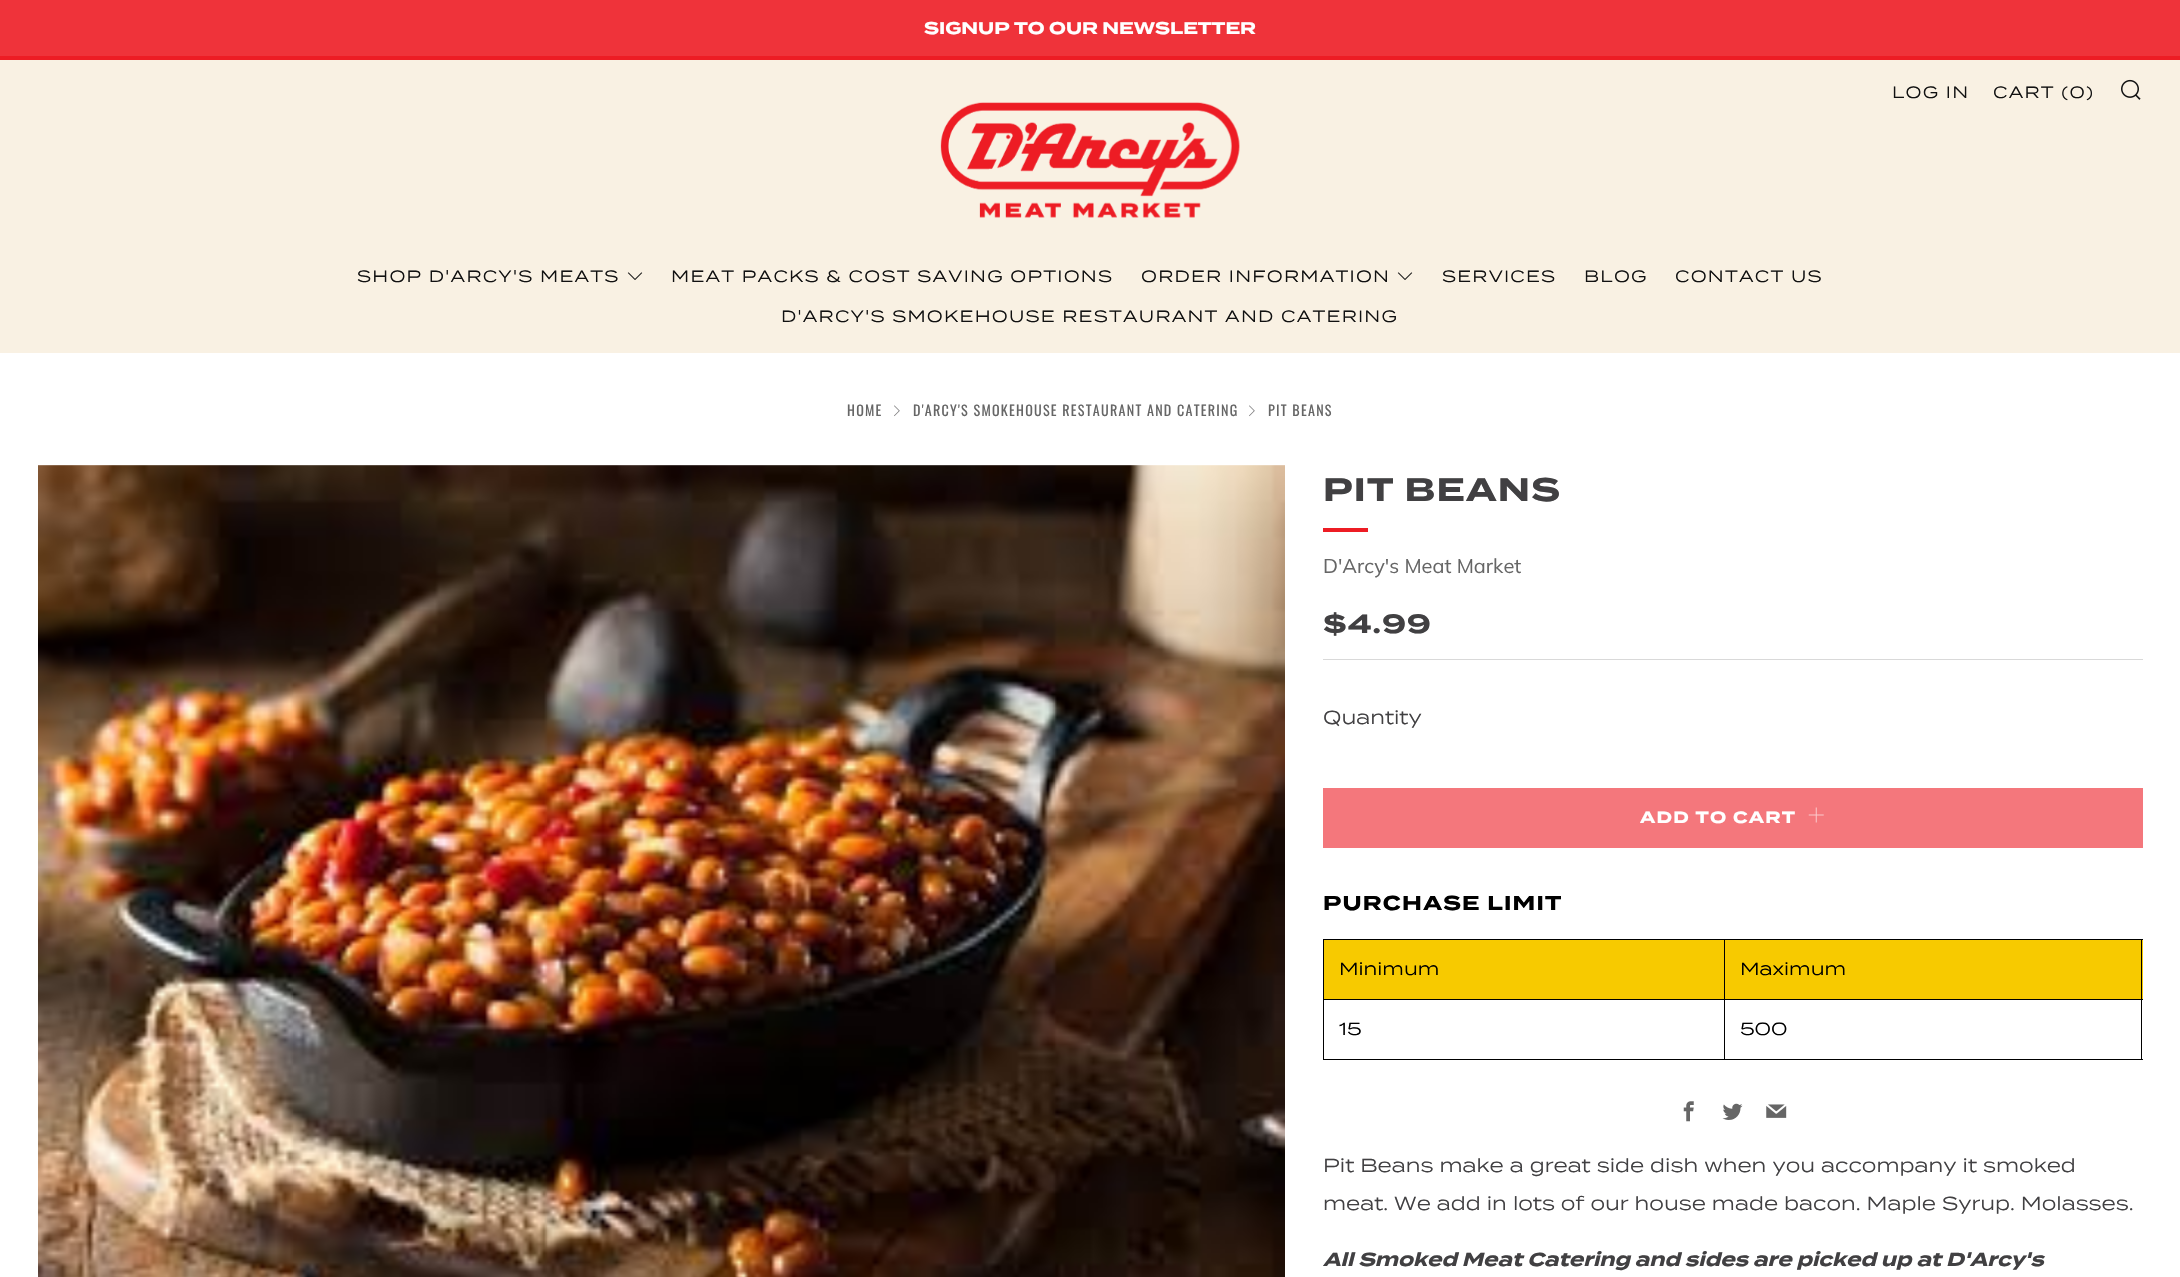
void draw(SkCanvas* canvas) {
	SkPaint fill;
	fill.setAntiAlias(true);
	auto makeFont = [&](const char* family, int weight, float size, bool italic = false) {
		SkFontStyle style(weight, SkFontStyle::kNormal_Width,
			italic ? SkFontStyle::kItalic_Slant : SkFontStyle::kUpright_Slant);
		SkFont result(fontMgr->matchFamilyStyle(family, style), size);
		result.setSubpixel(true);
		return result;
	};
	auto text = [&](const char* s, float x, float y, const SkFont& font) {
		canvas->drawString(s, x, y, font, fill);
	};
	auto spacedText = [&](const char* s, float x, float y, const SkFont& font, const SkPaint& ink, float letter, float word) {
		std::vector<SkGlyphID> glyphs(font.countText(s, strlen(s), SkTextEncoding::kUTF8));
		std::vector<float> xs(glyphs.size());
		font.textToGlyphs(s, strlen(s), SkTextEncoding::kUTF8, glyphs);
		font.getXPos(glyphs, xs, x);
		float extra = 0;
		for (size_t i = 0; i < glyphs.size(); i++) {
			xs[i] += extra;
			extra += letter + word * (glyphs[i] == font.unicharToGlyph(' '));
		}
		canvas->drawTextBlob(SkTextBlob::MakeFromPosHGlyphs(glyphs, xs, y, font), 0, 0, ink);
	};
	auto box = [&](float l, float t, float r, float b) {
		canvas->drawRect(SkRect::MakeLTRB(l, t, r, b), fill);
	};
	auto picture = [&](const char* path, float l, float t, float r, float b) {
		auto image = SkImages::DeferredFromEncodedData(SkData::MakeFromFileName(path));
		canvas->drawImageRect(image, SkRect::MakeLTRB(l, t, r, b), SkSamplingOptions());
	};
	canvas->clear(0xFFFFFFFF);
	fill.setColor(0xFFEF333A);
	box(0, 0, 2180, 56);
	fill.setColor(0xFFF9F1E3);
	box(0, 60, 2180, 353);
	fill.setColor(0xFFED1C24);
	box(0, 56, 2180, 60);
	picture("image0.png", 2121, 79, 2141, 100);
	picture("image1.png", 627, 272, 643, 280);
	picture("image1.png", 1397, 272, 1413, 280);
	picture("image2.png", 940, 102, 1240, 218);
	picture("image3.png", 894, 405, 900, 417);
	picture("image3.png", 1249, 405, 1255, 417);
	picture("image4.png", 38, 465, 1285, 1277);
	box(1323, 528, 1368, 532);
	fill.setColor(0xFFD9D9D9);
	box(1323, 659, 2143, 660);
	fill.setColor(0xFFF4777C);
	box(1323, 788, 2143, 848);
	picture("image5.png", 1808, 807, 1824, 823);
	fill.setColor(0xFFF7CA00);
	box(1324, 940, 1724, 999);
	fill.setColor(0xFF000000);
	box(1724, 939, 2143, 940);
	box(1724, 999, 2143, 1000);
	box(2141, 999, 2142, 1060);
	box(1724, 1059, 2143, 1060);
	box(1724, 999, 1725, 1060);
	box(1323, 999, 1725, 1000);
	box(1724, 939, 1725, 1000);
	box(1323, 939, 1725, 940);
	box(1323, 1059, 1725, 1060);
	box(1323, 999, 1324, 1060);
	box(1323, 939, 1324, 1000);
	fill.setColor(0xFFF7CA00);
	box(1725, 940, 2143, 999);
	fill.setColor(0xFF000000);
	box(2141, 939, 2142, 1000);
	picture("image6.png", 1683, 1101, 1694, 1122);
	picture("image7.png", 1722, 1103, 1743, 1120);
	picture("image8.png", 1766, 1104, 1787, 1118);
	auto font1 = makeFont("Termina", 700, 16.9f);
	fill.setColor(0xFFFFFFFF);
	text("SIGNUP TO OUR NEWSLETTER", 924, 34, font1);
	auto font2 = makeFont("Termina", 400, 16.25f);
	fill.setColor(0xFF111111);
	spacedText("LOG IN", 1892, 98, font2, fill, 1.25f, 0);
	spacedText("CART (0)", 1993, 98, font2, fill, 1.25f, 0);
	spacedText("SHOP D'ARCY'S MEATS", 357, 282, font2, fill, 1.25f, 0);
	spacedText("MEAT PACKS & COST SAVING OPTIONS", 671, 282, font2, fill, 1.25f, 0);
	spacedText("ORDER INFORMATION", 1141, 282, font2, fill, 1.25f, 0);
	spacedText("SERVICES", 1442, 282, font2, fill, 1.25f, 0);
	spacedText("BLOG", 1584, 282, font2, fill, 1.25f, 0);
	spacedText("CONTACT US", 1675, 282, font2, fill, 1.25f, 0);
	spacedText("D'ARCY'S SMOKEHOUSE RESTAURANT AND CATERING", 781, 322, font2, fill, 1.25f, 0);
	auto font3 = makeFont("Oswald", 400, 14.1f);
	fill.setColor(0xFF666666);
	spacedText("HOME", 847, 416, font3, fill, 1.25f, 0);
	spacedText("D'ARCY'S SMOKEHOUSE RESTAURANT AND CATERING", 913, 416, font3, fill, 1.25f, 0);
	spacedText("PIT BEANS", 1268, 416, font3, fill, 1.25f, 0);
	auto font4 = makeFont("Termina", 700, 32.5f);
	fill.setColor(0xFF414042);
	spacedText("PIT BEANS", 1323, 501, font4, fill, 1.25f, 0);
	auto font5 = makeFont("Muli", 400, 20);
	fill.setColor(0xFF666666);
	text("D'Arcy's Meat Market", 1323, 573, font5);
	auto font6 = makeFont("Termina", 700, 26.25f);
	fill.setColor(0xFF414042);
	spacedText("$4.99", 1323, 633, font6, fill, 1.25f, 0);
	auto font7 = makeFont("Termina", 400, 18.75f);
	text("Quantity", 1323, 724, font7);
	auto font8 = makeFont("Termina", 700, 16.25f);
	fill.setColor(0xFFFFFFFF);
	spacedText("ADD TO CART", 1640, 823, font8, fill, 1.25f, 0);
	auto font9 = makeFont("Termina", 700, 20);
	fill.setColor(0xFF000000);
	spacedText("PURCHASE LIMIT", 1323, 910, font9, fill, 1.25f, 0);
	auto font10 = makeFont("Termina", 400, 17.5f);
	text("Minimum", 1339, 975, font10);
	text("Maximum", 1740, 975, font10);
	text("15", 1339, 1035, font10);
	text("500", 1740, 1035, font10);
	fill.setColor(0xFF414042);
	text("Pit Beans make a great side dish when you accompany it smoked", 1323, 1172, font7);
	text("meat. We add in lots of our house made bacon. Maple Syrup. Molasses.", 1323, 1210, font7);
	auto font11 = makeFont("Termina", 700, 18.75f, true);
	text("All Smoked Meat Catering and sides are picked up at D'Arcy's", 1323, 1266, font11);
}
